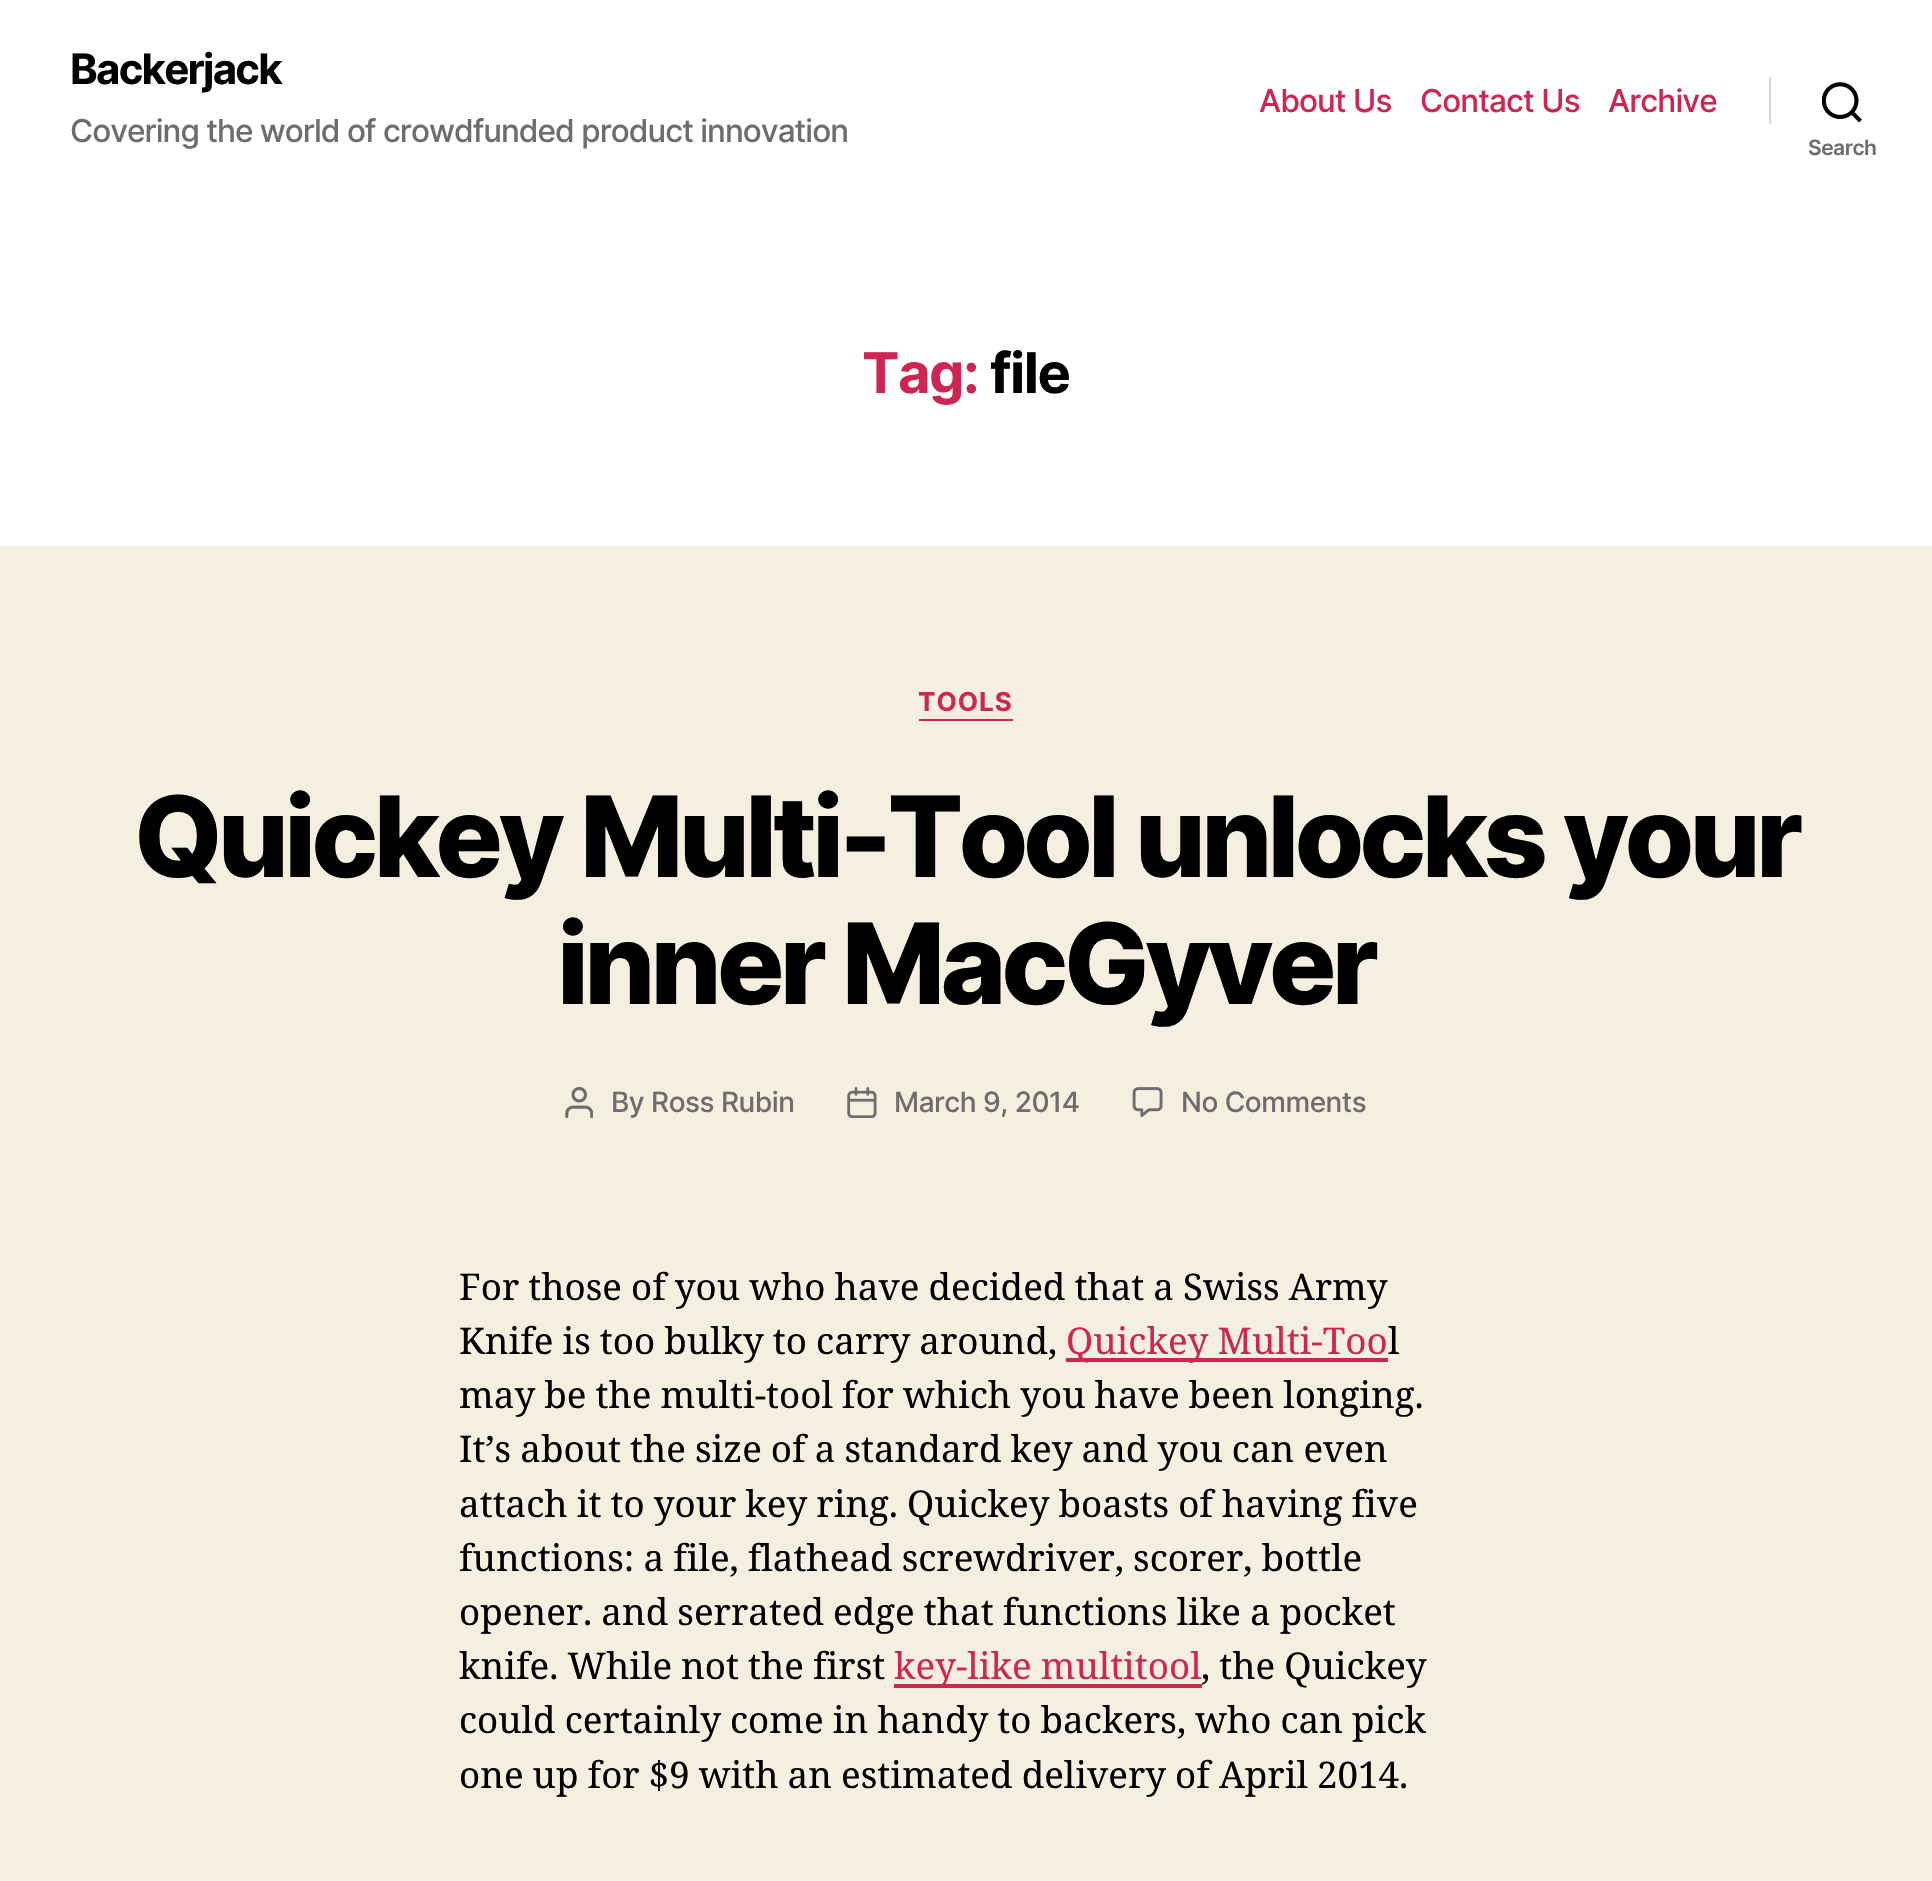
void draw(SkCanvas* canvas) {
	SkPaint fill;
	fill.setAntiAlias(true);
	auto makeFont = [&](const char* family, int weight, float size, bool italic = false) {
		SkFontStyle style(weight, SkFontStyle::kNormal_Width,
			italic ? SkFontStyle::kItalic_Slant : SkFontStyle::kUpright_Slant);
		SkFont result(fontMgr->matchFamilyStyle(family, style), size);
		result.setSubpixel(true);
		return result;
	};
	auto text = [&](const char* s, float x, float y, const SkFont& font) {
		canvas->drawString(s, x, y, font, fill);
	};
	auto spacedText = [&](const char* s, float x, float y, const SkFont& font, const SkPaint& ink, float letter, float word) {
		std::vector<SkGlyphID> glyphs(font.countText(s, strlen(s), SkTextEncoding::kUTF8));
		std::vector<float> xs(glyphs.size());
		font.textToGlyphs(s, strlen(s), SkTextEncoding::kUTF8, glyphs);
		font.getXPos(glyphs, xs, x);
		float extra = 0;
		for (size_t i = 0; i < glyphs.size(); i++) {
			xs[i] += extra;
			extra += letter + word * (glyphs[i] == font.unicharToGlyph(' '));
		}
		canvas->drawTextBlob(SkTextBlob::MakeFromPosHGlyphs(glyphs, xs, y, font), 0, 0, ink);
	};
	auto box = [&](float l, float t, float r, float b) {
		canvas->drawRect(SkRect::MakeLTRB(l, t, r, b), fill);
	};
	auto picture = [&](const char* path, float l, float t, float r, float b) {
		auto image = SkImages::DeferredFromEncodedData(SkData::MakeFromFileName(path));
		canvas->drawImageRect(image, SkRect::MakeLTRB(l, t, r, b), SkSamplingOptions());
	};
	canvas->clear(0xFFF5EFE0);
	fill.setColor(0xFFFFFFFF);
	box(0, 0, 1932, 546);
	fill.setColor(0xFFDCD7CA);
	box(1769, 77, 1771, 124);
	picture("image0.png", 1822, 82, 1862, 123);
	fill.setColor(0xFFCD2653);
	box(919, 719, 1013, 721);
	picture("image1.png", 565, 1087, 593, 1118);
	picture("image2.png", 847, 1087, 877, 1118);
	picture("image3.png", 1132, 1087, 1163, 1117);
	box(1066, 1358, 1388, 1362);
	box(894, 1684, 1202, 1688);
	auto font1 = makeFont("Inter", 700, 42);
	fill.setColor(0xFF000000);
	spacedText("Backerjack", 70, 84, font1, fill, -1.75f, 0);
	auto font2 = makeFont("Inter", 500, 31.5f);
	fill.setColor(0xFF6D6D6D);
	spacedText("Covering the world of crowdfunded product innovation", 70, 142, font2, fill, -0.98f, 0);
	fill.setColor(0xFFCD2653);
	spacedText("About Us", 1259, 112, font2, fill, -0.9f, 0);
	spacedText("Contact Us", 1420, 112, font2, fill, -0.9f, 0);
	spacedText("Archive", 1608, 112, font2, fill, -0.9f, 0);
	auto font3 = makeFont("Inter", 600, 21);
	fill.setColor(0xFF6D6D6D);
	spacedText("Search", 1808, 155, font3, fill, -0.5f, 0);
	auto font4 = makeFont("Inter", 700, 56);
	fill.setColor(0xFFCD2653);
	spacedText("Tag:", 862, 393, font4, fill, -1.5f, 0);
	fill.setColor(0xFF000000);
	spacedText("file", 990, 393, font4, fill, -1.5f, 0);
	auto font5 = makeFont("Inter", 700, 26);
	fill.setColor(0xFFCD2653);
	spacedText("TOOLS", 918, 711, font5, fill, 1, 0);
	auto font6 = makeFont("Inter", 800, 112);
	fill.setColor(0xFF000000);
	spacedText("Quickey Multi-Tool unlocks your", 134, 877, font6, fill, -4.65f, 0);
	spacedText("inner MacGyver", 557, 1004, font6, fill, -4.65f, 0);
	auto font7 = makeFont("Inter", 500, 28);
	fill.setColor(0xFF6D6D6D);
	spacedText("By Ross Rubin", 611, 1112, font7, fill, -0.5f, 0);
	spacedText("March 9, 2014", 894, 1112, font7, fill, -0.5f, 0);
	spacedText("No Comments", 1181, 1112, font7, fill, -0.5f, 0);
	auto font8 = makeFont("Noto Serif", 400, 36.75f);
	fill.setColor(0xFF000000);
	spacedText("For those of you who have decided that a Swiss Army", 459, 1300, font8, fill, 0, -0.5f);
	spacedText("Knife is too bulky to carry around,", 459, 1354, font8, fill, 0, -0.5f);
	fill.setColor(0xFFCD2653);
	spacedText("Quickey Multi-Too", 1066, 1354, font8, fill, 0, -0.5f);
	fill.setColor(0xFF000000);
	text("l", 1388, 1354, font8);
	spacedText("may be the multi-tool for which you have been longing.", 459, 1408, font8, fill, 0, -0.5f);
	spacedText("It’s about the size of a standard key and you can even", 459, 1462, font8, fill, 0, -0.5f);
	spacedText("attach it to your key ring. Quickey boasts of having five", 459, 1517, font8, fill, 0, -0.5f);
	spacedText("functions: a file, flathead screwdriver, scorer, bottle", 459, 1571, font8, fill, 0, -0.5f);
	spacedText("opener. and serrated edge that functions like a pocket", 459, 1625, font8, fill, 0, -0.5f);
	spacedText("knife. While not the first", 459, 1679, font8, fill, 0, -0.5f);
	fill.setColor(0xFFCD2653);
	spacedText("key-like multitool", 894, 1679, font8, fill, 0, -0.5f);
	fill.setColor(0xFF000000);
	spacedText(", the Quickey", 1201, 1679, font8, fill, 0, -0.5f);
	spacedText("could certainly come in handy to backers, who can pick", 459, 1733, font8, fill, 0, -0.5f);
	spacedText("one up for $9 with an estimated delivery of April 2014.", 459, 1788, font8, fill, 0, -0.5f);
}
